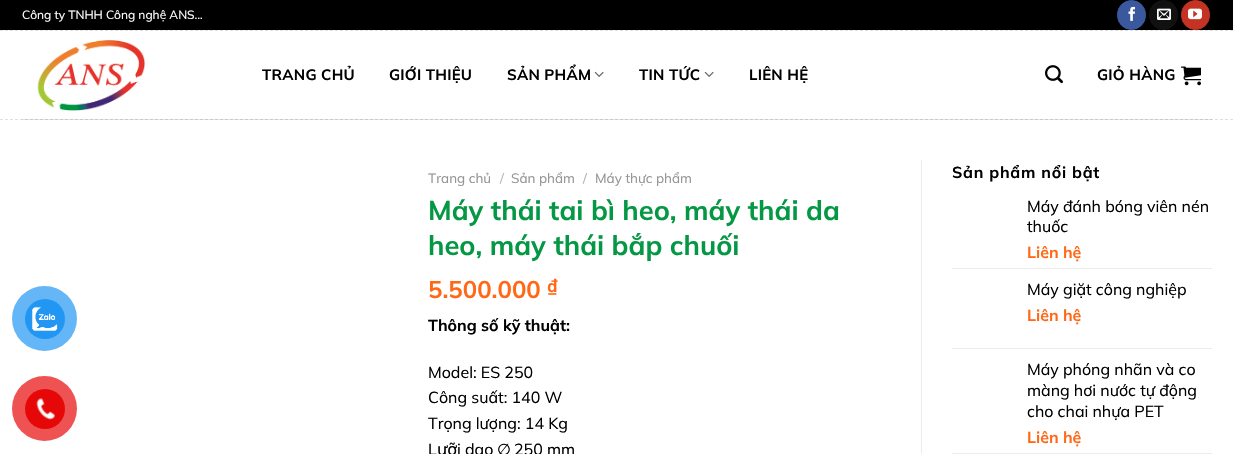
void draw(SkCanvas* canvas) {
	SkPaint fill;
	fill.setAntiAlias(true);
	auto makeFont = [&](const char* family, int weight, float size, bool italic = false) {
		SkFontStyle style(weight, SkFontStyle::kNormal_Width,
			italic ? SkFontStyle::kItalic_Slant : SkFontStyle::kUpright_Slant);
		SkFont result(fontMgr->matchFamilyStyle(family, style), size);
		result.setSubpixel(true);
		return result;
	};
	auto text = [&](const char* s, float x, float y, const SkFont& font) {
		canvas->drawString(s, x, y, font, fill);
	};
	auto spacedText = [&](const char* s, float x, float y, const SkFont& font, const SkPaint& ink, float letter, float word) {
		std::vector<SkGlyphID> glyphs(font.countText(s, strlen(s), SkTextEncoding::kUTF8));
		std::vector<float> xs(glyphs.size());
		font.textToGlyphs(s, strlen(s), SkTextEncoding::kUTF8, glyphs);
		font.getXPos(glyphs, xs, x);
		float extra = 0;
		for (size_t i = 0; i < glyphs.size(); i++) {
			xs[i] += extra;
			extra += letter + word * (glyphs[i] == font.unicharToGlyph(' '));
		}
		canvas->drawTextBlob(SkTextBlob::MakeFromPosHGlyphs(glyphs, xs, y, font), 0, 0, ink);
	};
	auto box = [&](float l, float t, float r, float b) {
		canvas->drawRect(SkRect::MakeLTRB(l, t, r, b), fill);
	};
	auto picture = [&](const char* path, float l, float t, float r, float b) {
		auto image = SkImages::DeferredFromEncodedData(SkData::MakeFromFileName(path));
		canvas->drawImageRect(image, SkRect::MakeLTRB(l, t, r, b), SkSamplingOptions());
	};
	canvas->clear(0xFFFFFFFF);
	fill.setColor(0xFF000000);
	box(0, 0, 1233, 30);
	fill.setColor(0xFF3A589D);
	canvas->drawRoundRect(SkRect::MakeLTRB(1117.5f, 0.5f, 1145.5f, 29.5f), 14, 14, fill);
	fill.setStyle(SkPaint::kStroke_Style);
	fill.setStrokeWidth(1);
	canvas->drawRoundRect(SkRect::MakeLTRB(1117.5f, 0.5f, 1145.5f, 29.5f), 14, 14, fill);
	picture("image0.png", 1128, 6, 1135, 21);
	fill.setStyle(SkPaint::kFill_Style);
	fill.setColor(0xFF111111);
	canvas->drawRoundRect(SkRect::MakeLTRB(1149.5f, 0.5f, 1177.5f, 29.5f), 14, 14, fill);
	fill.setStyle(SkPaint::kStroke_Style);
	canvas->drawRoundRect(SkRect::MakeLTRB(1149.5f, 0.5f, 1177.5f, 29.5f), 14, 14, fill);
	picture("image1.png", 1157, 8, 1171, 20);
	fill.setStyle(SkPaint::kFill_Style);
	fill.setColor(0xFFC33223);
	canvas->drawRoundRect(SkRect::MakeLTRB(1181.5f, 0.5f, 1209.5f, 29.5f), 14, 14, fill);
	fill.setStyle(SkPaint::kStroke_Style);
	canvas->drawRoundRect(SkRect::MakeLTRB(1181.5f, 0.5f, 1209.5f, 29.5f), 14, 14, fill);
	picture("image2.png", 1188, 8, 1202, 20);
	fill.setColor(0xFFE0E0E0);
	fill.setPathEffect(SkDashPathEffect::Make({{3, 2}}, 0));
	canvas->drawPath(SkPathBuilder().moveTo(0, 30.5f).lineTo(1233, 30.5f).detach(), fill);
	fill.setPathEffect(nullptr);
	fill.setPathEffect(SkDashPathEffect::Make({{3, 2}}, 0));
	canvas->drawPath(SkPathBuilder().moveTo(0, 119.5f).lineTo(1233, 119.5f).detach(), fill);
	fill.setPathEffect(nullptr);
	picture("image3.png", 37, 40, 146, 111);
	picture("image4.png", 594, 71, 604, 77);
	picture("image4.png", 704, 71, 714, 77);
	picture("image5.png", 1045, 65, 1063, 84);
	picture("image6.png", 1181, 66, 1201, 86);
	fill.setStyle(SkPaint::kFill_Style);
	fill.setColor(0x1A000000);
	box(22, 119, 1212, 120);
	fill.setColor(0xFFECECEC);
	box(921, 160, 922, 454);
	box(952, 268, 1212, 269);
	box(952, 348, 1212, 349);
	box(952, 453, 1212, 454);
	fill.setColor(0xFF64B6F7);
	canvas->drawCircle(44.5f, 318.5f, 32.5f, fill);
	fill.setColor(0xFF2196F3);
	canvas->drawCircle(45, 319, 20, fill);
	picture("image7.png", 32, 307, 58, 331);
	fill.setColor(0xFFEE5252);
	canvas->drawCircle(44.5f, 408.5f, 32.5f, fill);
	fill.setColor(0xFFE60808);
	canvas->drawCircle(45, 409, 20, fill);
	picture("image8.png", 36, 398, 55, 420);
	auto font1 = makeFont("Mulish", 400, 12);
	fill.setColor(0xFFFFFFFF);
	text("Công ty TNHH Công nghệ ANS...", 22, 19, font1);
	auto font2 = makeFont("Mulish", 700, 15);
	fill.setColor(0xFF000000);
	spacedText("TRANG CHỦ", 262, 80, font2, fill, 0.25f, 0);
	spacedText("GIỚI THIỆU", 389, 80, font2, fill, 0.25f, 0);
	spacedText("SẢN PHẨM", 507, 80, font2, fill, 0.25f, 0);
	spacedText("TIN TỨC", 639, 80, font2, fill, 0.25f, 0);
	spacedText("LIÊN HỆ", 749, 80, font2, fill, 0.25f, 0);
	spacedText("GIỎ HÀNG", 1097, 80, font2, fill, 0.25f, 0);
	auto font3 = makeFont("Mulish", 400, 13.5f);
	fill.setColor(0xFF949494);
	text("Trang chủ", 428, 183, font3);
	fill.setColor(0xFFB2B2B2);
	text("/", 500, 183, font3);
	fill.setColor(0xFF949494);
	text("Sản phẩm", 511, 183, font3);
	fill.setColor(0xFFB2B2B2);
	text("/", 583, 183, font3);
	fill.setColor(0xFF949494);
	text("Máy thực phẩm", 595, 183, font3);
	auto font4 = makeFont("Mulish", 700, 27.25f);
	fill.setColor(0xFF049744);
	text("Máy thái tai bì heo, máy thái da", 428, 220, font4);
	text("heo, máy thái bắp chuối", 428, 255, font4);
	auto font5 = makeFont("Mulish", 700, 24);
	fill.setColor(0xFFFF6816);
	text("5.500.000", 428, 298, font5);
	auto font6 = makeFont("Mulish", 700, 18);
	text("₫", 547, 292, font6);
	auto font7 = makeFont("Mulish", 700, 16);
	fill.setColor(0xFF000000);
	text("Thông số kỹ thuật:", 428, 331, font7);
	auto font8 = makeFont("Mulish", 400, 16);
	text("Model: ES 250", 428, 378, font8);
	text("Công suất: 140 W", 428, 403, font8);
	text("Trọng lượng: 14 Kg", 428, 429, font8);
	text("L", 428, 455, font8);
	auto font9 = makeFont("DejaVu Sans", 400, 16);
	text("ưỡ", 437, 455, font9);
	text("i dao", 457, 455, font8);
	text("∅", 497, 455, font9);
	text("250 mm", 514, 455, font8);
	spacedText("Sản phẩm nổi bật", 952, 178, font7, fill, 0.75f, 0);
	text("Máy đánh bóng viên nén", 1027, 212, font8);
	text("thuốc", 1027, 232, font8);
	fill.setColor(0xFFFF6816);
	text("Liên hệ", 1027, 258, font7);
	fill.setColor(0xFF000000);
	text("Máy giặt công nghiệp", 1027, 295, font8);
	fill.setColor(0xFFFF6816);
	text("Liên hệ", 1027, 321, font7);
	fill.setColor(0xFF000000);
	text("Máy phóng nhãn và co", 1027, 375, font8);
	text("màng hơi nước tự động", 1027, 396, font8);
	text("cho chai nhựa PET", 1027, 417, font8);
	fill.setColor(0xFFFF6816);
	text("Liên hệ", 1027, 443, font7);
}
